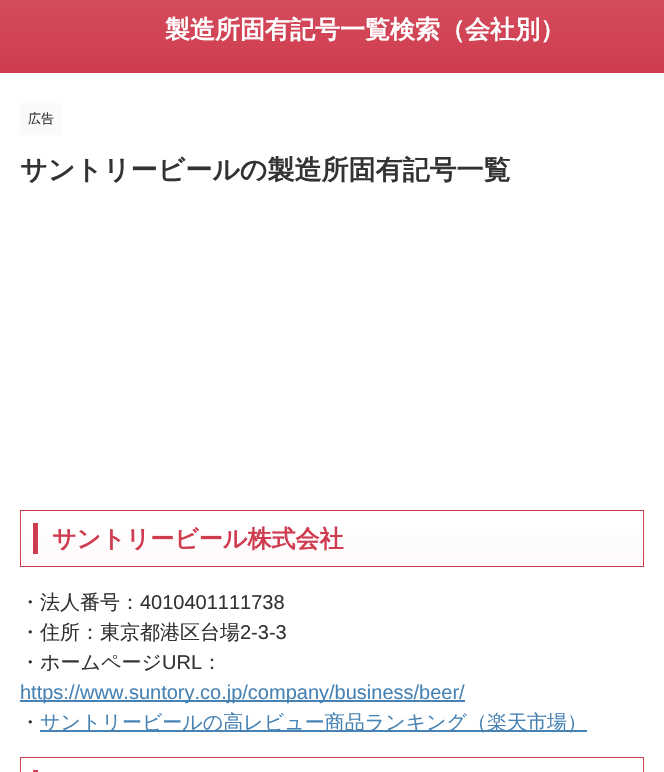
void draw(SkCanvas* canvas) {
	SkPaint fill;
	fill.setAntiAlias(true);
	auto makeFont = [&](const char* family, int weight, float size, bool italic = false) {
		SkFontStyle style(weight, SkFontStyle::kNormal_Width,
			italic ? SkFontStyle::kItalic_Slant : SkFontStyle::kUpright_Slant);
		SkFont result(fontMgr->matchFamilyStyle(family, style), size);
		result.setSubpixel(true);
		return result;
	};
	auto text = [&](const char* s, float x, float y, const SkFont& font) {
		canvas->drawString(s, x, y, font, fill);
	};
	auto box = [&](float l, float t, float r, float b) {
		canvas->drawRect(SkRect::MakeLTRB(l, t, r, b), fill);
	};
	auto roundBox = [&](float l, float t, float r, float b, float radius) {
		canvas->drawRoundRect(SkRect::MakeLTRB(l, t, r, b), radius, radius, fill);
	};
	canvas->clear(0xFFFFFFFF);
	{
		const SkColor colors[] = {0xFFD34C5D, 0xFFCF3C4F};
		const float stops[] = {0, 1};
		const SkPoint ends[] = {{332, 0}, {332, 73}};
		fill.setShader(SkGradientShader::MakeLinear(ends, colors, stops, 2, SkTileMode::kClamp));
		fill.setAlpha(255);
	}
	box(0, 0, 664, 73);
	fill.setShader(nullptr);
	fill.setColor(0xFFFAFAFA);
	roundBox(20, 103, 62, 135, 2);
	{
		const SkColor colors[] = {0xFFFFFFFF, 0xFFFEF9FA};
		const float stops[] = {0, 1};
		const SkPoint ends[] = {{332, 511}, {332, 566}};
		fill.setShader(SkGradientShader::MakeLinear(ends, colors, stops, 2, SkTileMode::kClamp));
		fill.setAlpha(255);
	}
	box(21, 534, 643, 566);
	fill.setStyle(SkPaint::kStroke_Style);
	fill.setStrokeWidth(1);
	fill.setShader(nullptr);
	fill.setColor(0xFFCF3C4F);
	canvas->drawRect(SkRect::MakeLTRB(20.5f, 510.5f, 643.5f, 566.5f), fill);
	fill.setStyle(SkPaint::kFill_Style);
	box(33, 523, 38, 554);
	fill.setColor(0xFF4682B4);
	box(20, 700, 465, 702);
	box(40, 730, 587, 732);
	fill.setStyle(SkPaint::kStroke_Style);
	fill.setColor(0xFFCF3C4F);
	canvas->drawRect(SkRect::MakeLTRB(20.5f, 757.5f, 643.5f, 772.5f), fill);
	fill.setStyle(SkPaint::kFill_Style);
	box(33, 770, 38, 772);
	auto font1 = makeFont("WenQuanYi Zen Hei", 700, 25);
	fill.setColor(0xFFFFFFFF);
	text("製造所固有記号一覧検索（会社別）", 165, 38, font1);
	auto font2 = makeFont("WenQuanYi Zen Hei", 500, 13);
	fill.setColor(0xFF333333);
	text("広告", 28, 123, font2);
	auto font3 = makeFont("WenQuanYi Zen Hei", 700, 27);
	text("サントリービールの製造所固有記号一覧", 20, 179, font3);
	auto font4 = makeFont("WenQuanYi Zen Hei", 700, 24);
	fill.setColor(0xFFCF3C4F);
	text("サントリービール株式会社", 52, 547, font4);
	auto font5 = makeFont("WenQuanYi Zen Hei", 500, 20);
	fill.setColor(0xFF333333);
	text("・法人番号：", 20, 609, font5);
	auto font6 = makeFont("Liberation Sans", 400, 20);
	text("4010401111738", 140, 609, font6);
	text("・住所：東京都港区台場", 20, 639, font5);
	text("2-3-3", 240, 639, font6);
	text("・ホームページ", 20, 669, font5);
	text("URL", 162, 669, font6);
	text("：", 202, 669, font5);
	fill.setColor(0xFF4682B4);
	text("https://www.suntory.co.jp/company/business/beer/", 20, 699, font6);
	fill.setColor(0xFF333333);
	text("・", 20, 729, font5);
	fill.setColor(0xFF4682B4);
	text("サントリービールの高レビュー商品ランキング（楽天市場）", 40, 729, font5);
}
